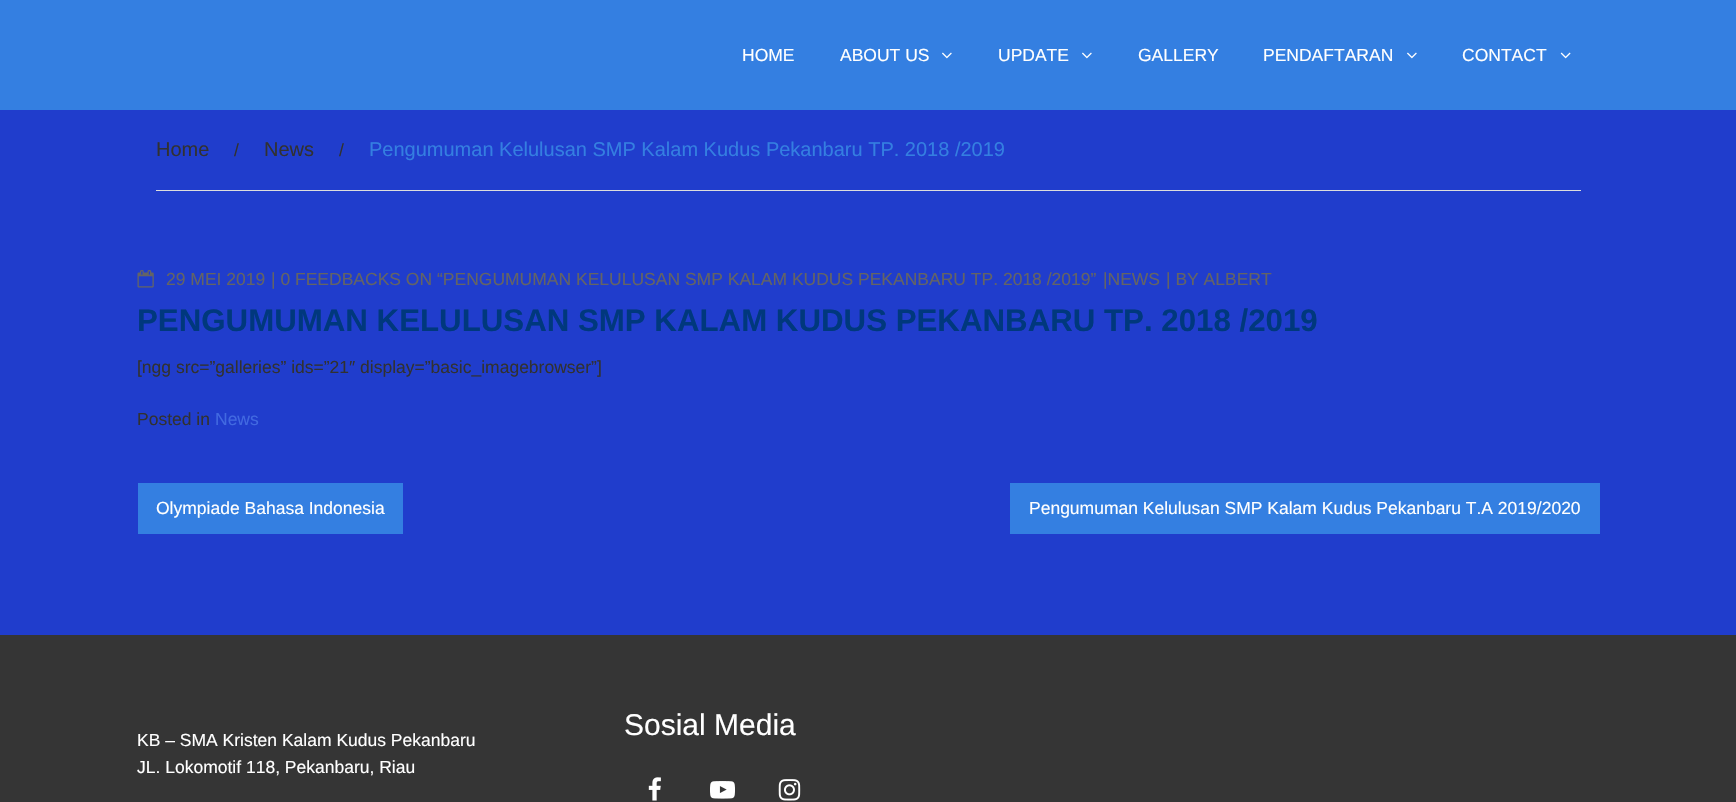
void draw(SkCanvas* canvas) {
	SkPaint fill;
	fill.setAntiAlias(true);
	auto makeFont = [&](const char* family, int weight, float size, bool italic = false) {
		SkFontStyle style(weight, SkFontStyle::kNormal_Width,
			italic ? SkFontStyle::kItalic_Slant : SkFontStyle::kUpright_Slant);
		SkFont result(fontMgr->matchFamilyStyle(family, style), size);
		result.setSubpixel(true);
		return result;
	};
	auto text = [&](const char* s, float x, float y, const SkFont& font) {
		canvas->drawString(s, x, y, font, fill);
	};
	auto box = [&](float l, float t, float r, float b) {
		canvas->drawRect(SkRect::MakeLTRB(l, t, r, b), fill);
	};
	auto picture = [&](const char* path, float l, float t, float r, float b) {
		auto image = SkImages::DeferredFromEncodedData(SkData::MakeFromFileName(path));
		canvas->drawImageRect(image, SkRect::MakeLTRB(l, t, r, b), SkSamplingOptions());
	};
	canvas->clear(0xFF203DCC);
	fill.setColor(0xFF347FE1);
	box(0, 0, 1736, 110);
	picture("image0.png", 942, 52, 952, 59);
	picture("image0.png", 1082, 52, 1092, 59);
	picture("image0.png", 1407, 52, 1417, 59);
	picture("image1.png", 1560, 52, 1571, 59);
	fill.setColor(0xFFDDDDDD);
	box(156, 190, 1581, 191);
	picture("image2.png", 137, 270, 154, 288);
	fill.setColor(0xFF347FE1);
	box(138, 483, 403, 534);
	box(1010, 483, 1600, 534);
	fill.setColor(0xFF353535);
	box(0, 635, 1736, 802);
	picture("image3.png", 648, 777, 661, 801);
	picture("image4.png", 710, 781, 735, 799);
	picture("image5.png", 778, 779, 801, 801);
	auto font1 = makeFont("Liberation Sans", 400, 17.5f);
	fill.setColor(0xFFFFFFFF);
	text("HOME", 742, 61, font1);
	text("ABOUT US", 840, 61, font1);
	text("UPDATE", 998, 61, font1);
	text("GALLERY", 1138, 61, font1);
	text("PENDAFTARAN", 1263, 61, font1);
	text("CONTACT", 1462, 61, font1);
	auto font2 = makeFont("Liberation Sans", 400, 20);
	fill.setColor(0xFF313131);
	text("Home", 156, 156, font2);
	text("/", 234, 156, font1);
	text("News", 264, 156, font2);
	text("/", 339, 156, font1);
	fill.setColor(0xFF347FE1);
	text("Pengumuman Kelulusan SMP Kalam Kudus Pekanbaru TP. 2018 /2019", 369, 156, font2);
	fill.setColor(0xFF646464);
	text("29 MEI 2019", 166, 285, font1);
	text("| 0 FEEDBACKS ON “PENGUMUMAN KELULUSAN SMP KALAM KUDUS PEKANBARU TP. 2018 /2019”", 271, 285, font1);
	text("|NEWS", 1103, 285, font1);
	text("| BY ALBERT", 1166, 285, font1);
	auto font3 = makeFont("Liberation Sans", 700, 31.25f);
	fill.setColor(0xFF00387D);
	text("PENGUMUMAN KELULUSAN SMP KALAM KUDUS PEKANBARU TP. 2018 /2019", 137, 331, font3);
	fill.setColor(0xFF313131);
	text("[ngg src=”galleries” ids=”21″ display=”basic_imagebrowser”]", 137, 373, font1);
	text("Posted in", 137, 425, font1);
	fill.setColor(0xFF4169E1);
	text("News", 215, 425, font1);
	fill.setColor(0xFFFFFFFF);
	text("Olympiade Bahasa Indonesia", 156, 514, font1);
	text("Pengumuman Kelulusan SMP Kalam Kudus Pekanbaru T.A 2019/2020", 1029, 514, font1);
	auto font4 = makeFont("Liberation Sans", 400, 30);
	text("Sosial Media", 624, 735, font4);
	text("KB – SMA Kristen Kalam Kudus Pekanbaru", 137, 746, font1);
	text("JL. Lokomotif 118, Pekanbaru, Riau", 137, 773, font1);
}
